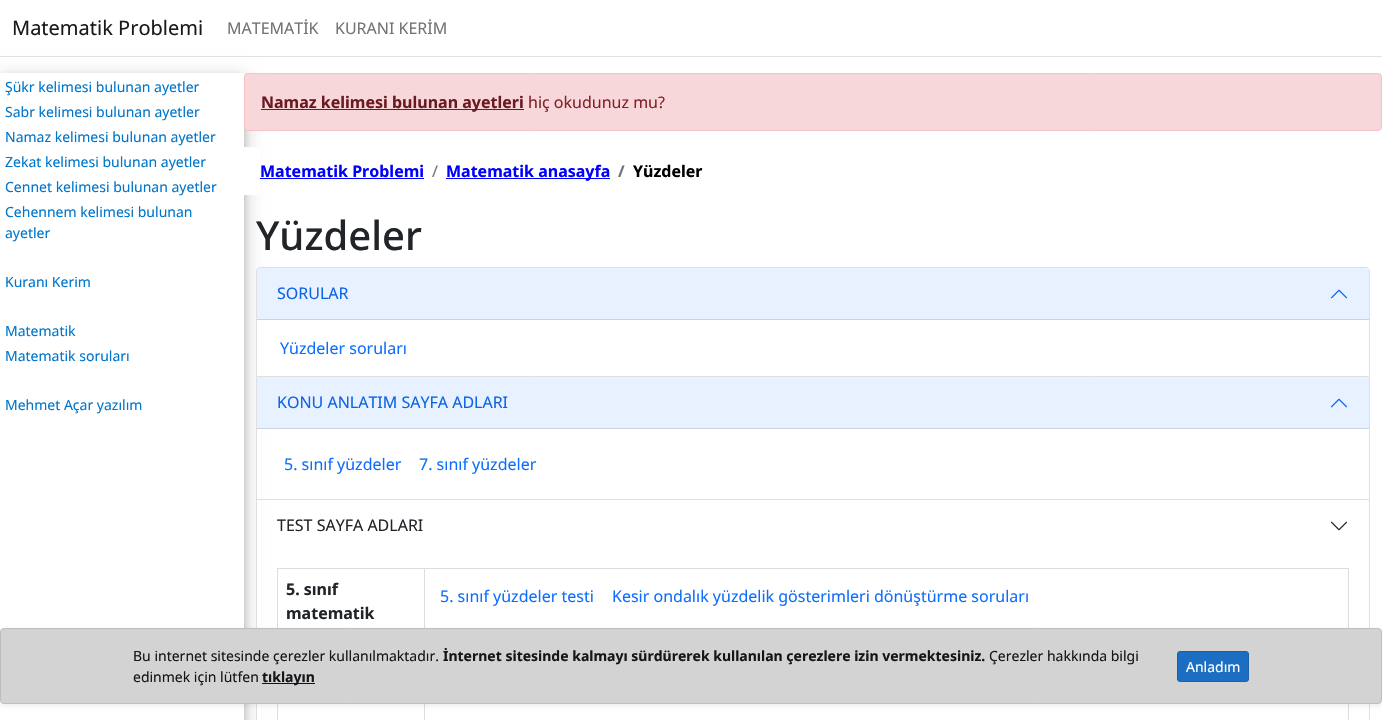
void draw(SkCanvas* canvas) {
	SkPaint fill;
	fill.setAntiAlias(true);
	auto makeFont = [&](const char* family, int weight, float size, bool italic = false) {
		SkFontStyle style(weight, SkFontStyle::kNormal_Width,
			italic ? SkFontStyle::kItalic_Slant : SkFontStyle::kUpright_Slant);
		SkFont result(fontMgr->matchFamilyStyle(family, style), size);
		result.setSubpixel(true);
		return result;
	};
	auto text = [&](const char* s, float x, float y, const SkFont& font) {
		canvas->drawString(s, x, y, font, fill);
	};
	auto box = [&](float l, float t, float r, float b) {
		canvas->drawRect(SkRect::MakeLTRB(l, t, r, b), fill);
	};
	auto picture = [&](const char* path, float l, float t, float r, float b) {
		auto image = SkImages::DeferredFromEncodedData(SkData::MakeFromFileName(path));
		canvas->drawImageRect(image, SkRect::MakeLTRB(l, t, r, b), SkSamplingOptions());
	};
	canvas->clear(0xFFFFFFFF);
	canvas->save();
	canvas->clipPath(SkPathBuilder(SkPathFillType::kEvenOdd).moveTo(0, 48).lineTo(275, 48).lineTo(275, 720).lineTo(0, 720).close().moveTo(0, 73).lineTo(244, 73).lineTo(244, 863).lineTo(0, 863).close().detach(), true);
	fill.setColor(0x30000000);
	fill.setMaskFilter(SkMaskFilter::MakeBlur(kNormal_SkBlurStyle, 10));
	canvas->drawRect(SkRect::MakeLTRB(0, 79, 244, 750), fill);
	fill.setMaskFilter(nullptr);
	canvas->restore();
	fill.setColor(0xFFDEE2E6);
	box(0, 56, 1382, 57);
	canvas->save();
	canvas->clipPath(SkPathBuilder(SkPathFillType::kEvenOdd).moveTo(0, 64).lineTo(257, 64).lineTo(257, 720).lineTo(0, 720).close().moveTo(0, 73).lineTo(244, 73).lineTo(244, 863).lineTo(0, 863).close().detach(), true);
	fill.setColor(0x33000000);
	fill.setMaskFilter(SkMaskFilter::MakeBlur(kNormal_SkBlurStyle, 4));
	canvas->drawRect(SkRect::MakeLTRB(0, 77, 244, 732), fill);
	fill.setMaskFilter(nullptr);
	canvas->restore();
	fill.setColor(0xFFF8D7DA);
	canvas->drawRoundRect(SkRect::MakeLTRB(244.5f, 73.5f, 1381.5f, 130.5f), 3.5f, 3.5f, fill);
	fill.setStyle(SkPaint::kStroke_Style);
	fill.setStrokeWidth(1);
	fill.setColor(0xFFF5C2C7);
	canvas->drawRoundRect(SkRect::MakeLTRB(244.5f, 73.5f, 1381.5f, 130.5f), 3.5f, 3.5f, fill);
	fill.setStyle(SkPaint::kFill_Style);
	fill.setColor(0xFF6A1A21);
	box(261, 109, 524, 110);
	fill.setColor(0xFFFFFFFF);
	box(244, 147, 260, 195);
	fill.setColor(0xFF0000FF);
	box(260, 178, 424, 179);
	box(446, 178, 610, 179);
	fill.setColor(0xFFFFFFFF);
	canvas->drawPath(SkPathBuilder().moveTo(260, 267.5f).lineTo(1366, 267.5f).cubicTo(1368, 267.5f, 1369.5f, 269, 1369.5f, 271).lineTo(1369.5f, 376.5f).lineTo(256.5f, 376.5f).lineTo(256.5f, 271).cubicTo(256.5f, 269, 258, 267.5f, 260, 267.5f).close().detach(), fill);
	fill.setStyle(SkPaint::kStroke_Style);
	fill.setColor(0xFFDFDFDF);
	canvas->drawPath(SkPathBuilder().moveTo(260, 267.5f).lineTo(1366, 267.5f).cubicTo(1368, 267.5f, 1369.5f, 269, 1369.5f, 271).lineTo(1369.5f, 376.5f).lineTo(256.5f, 376.5f).lineTo(256.5f, 271).cubicTo(256.5f, 269, 258, 267.5f, 260, 267.5f).close().detach(), fill);
	fill.setStyle(SkPaint::kFill_Style);
	fill.setColor(0xFFE7F1FF);
	canvas->drawPath(SkPathBuilder().moveTo(260, 268).lineTo(1366, 268).cubicTo(1367.5f, 268, 1369, 269.5f, 1369, 271).lineTo(1369, 320).lineTo(257, 320).lineTo(257, 271).cubicTo(257, 269.5f, 258.5f, 268, 260, 268).close().detach(), fill);
	fill.setColor(0xFFCAD3DF);
	box(257, 319, 1369, 320);
	picture("image0.png", 1330, 289, 1348, 299);
	fill.setColor(0xFFFFFFFF);
	box(256, 377, 260, 500);
	fill.setColor(0xFFDFDFDF);
	canvas->drawPath(SkPathBuilder().moveTo(1370, 377).lineTo(1370, 500).lineTo(1369, 499).lineTo(1369, 377).close().detach(), fill);
	fill.setColor(0x1F000000);
	canvas->drawPath(SkPathBuilder().moveTo(1370, 500).lineTo(256, 500).lineTo(257, 499).lineTo(1369, 499).close().detach(), fill);
	canvas->drawPath(SkPathBuilder().moveTo(256, 500).lineTo(256, 377).lineTo(257, 377).lineTo(257, 499).close().detach(), fill);
	fill.setColor(0xFFE7F1FF);
	box(257, 377, 1369, 428);
	fill.setColor(0xFFCAD3DF);
	box(257, 428, 1369, 429);
	picture("image0.png", 1330, 398, 1348, 408);
	fill.setColor(0xFFFFFFFF);
	box(257, 500, 260, 720);
	fill.setColor(0xFFDFDFDF);
	canvas->drawPath(SkPathBuilder(SkPathFillType::kEvenOdd).moveTo(256, 500).lineTo(1370, 500).lineTo(1370, 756).cubicTo(1370, 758, 1368, 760, 1366, 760).lineTo(260, 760).cubicTo(258, 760, 256, 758, 256, 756).close().moveTo(257, 500).lineTo(1369, 500).lineTo(1369, 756).cubicTo(1369, 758, 1368, 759, 1366, 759).lineTo(260, 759).cubicTo(258, 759, 257, 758, 257, 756).close().detach(), fill);
	picture("image1.png", 1330, 521, 1348, 531);
	fill.setColor(0xFFDDDDDD);
	box(424, 568, 1349, 569);
	box(424, 568, 425, 634);
	box(277, 568, 425, 569);
	box(277, 568, 278, 634);
	box(1348, 568, 1349, 634);
	box(277, 704, 278, 720);
	box(1348, 704, 1349, 720);
	box(424, 704, 425, 720);
	fill.setColor(0x12000000);
	fill.setMaskFilter(SkMaskFilter::MakeBlur(kNormal_SkBlurStyle, 2));
	canvas->drawRoundRect(SkRect::MakeLTRB(0, 630, 1382, 706), 4, 4, fill);
	fill.setMaskFilter(nullptr);
	fill.setColor(0xFFD3D3D4);
	canvas->drawRoundRect(SkRect::MakeLTRB(0.5f, 628.5f, 1381.5f, 703.5f), 3.5f, 3.5f, fill);
	fill.setStyle(SkPaint::kStroke_Style);
	fill.setColor(0xFFBCBEBF);
	canvas->drawRoundRect(SkRect::MakeLTRB(0.5f, 628.5f, 1381.5f, 703.5f), 3.5f, 3.5f, fill);
	fill.setStyle(SkPaint::kFill_Style);
	fill.setColor(0xFF101214);
	box(262, 683, 315, 684);
	fill.setColor(0xFF1B6EC2);
	canvas->drawRoundRect(SkRect::MakeLTRB(1177.5f, 651.5f, 1248.5f, 681.5f), 2.5f, 2.5f, fill);
	fill.setStyle(SkPaint::kStroke_Style);
	fill.setColor(0xFF1861AC);
	canvas->drawRoundRect(SkRect::MakeLTRB(1177.5f, 651.5f, 1248.5f, 681.5f), 2.5f, 2.5f, fill);
	auto font1 = makeFont("Noto Sans", 400, 20);
	fill.setStyle(SkPaint::kFill_Style);
	fill.setColor(0xFF1A1A1A);
	text("Matematik Problemi", 12, 35, font1);
	auto font2 = makeFont("Noto Sans", 400, 16);
	fill.setColor(0xFF737373);
	text("MATEMATİK", 227, 34, font2);
	text("KURANI KERİM", 335, 34, font2);
	auto font3 = makeFont("Noto Sans", 400, 14);
	fill.setColor(0xFF0077CC);
	text("Şükr kelimesi bulunan ayetler", 5, 92, font3);
	text("Sabr kelimesi bulunan ayetler", 5, 117, font3);
	text("Namaz kelimesi bulunan ayetler", 5, 142, font3);
	text("Zekat kelimesi bulunan ayetler", 5, 167, font3);
	text("Cennet kelimesi bulunan ayetler", 5, 192, font3);
	text("Cehennem kelimesi bulunan", 5, 217, font3);
	text("ayetler", 5, 238, font3);
	text("Kuranı Kerim", 5, 287, font3);
	text("Matematik", 5, 336, font3);
	text("Matematik soruları", 5, 361, font3);
	text("Mehmet Açar yazılım", 5, 410, font3);
	auto font4 = makeFont("Noto Sans", 700, 16);
	fill.setColor(0xFF6A1A21);
	text("Namaz kelimesi bulunan ayetleri", 261, 108, font4);
	fill.setColor(0xFF842029);
	text("hiç okudunuz mu?", 528, 108, font2);
	fill.setColor(0xFF0000FF);
	text("Matematik Problemi", 260, 177, font4);
	fill.setColor(0xFF6C757D);
	text("/", 432, 177, font2);
	fill.setColor(0xFF0000FF);
	text("Matematik anasayfa", 446, 177, font4);
	fill.setColor(0xFF6C757D);
	text("/", 618, 177, font4);
	fill.setColor(0xFF000000);
	text("Yüzdeler", 633, 177, font4);
	auto font5 = makeFont("Noto Sans", 500, 40);
	fill.setColor(0xFF212529);
	text("Yüzdeler", 256, 250, font5);
	fill.setColor(0xFF0C63E4);
	text("SORULAR", 277, 299, font2);
	fill.setColor(0xFF0D6EFD);
	text("Yüzdeler soruları", 280, 354, font2);
	fill.setColor(0xFF0C63E4);
	text("KONU ANLATIM SAYFA ADLARI", 277, 408, font2);
	fill.setColor(0xFF0D6EFD);
	text("5. sınıf yüzdeler", 284, 470, font2);
	text("7. sınıf yüzdeler", 419, 470, font2);
	fill.setColor(0xFF212529);
	text("TEST SAYFA ADLARI", 277, 531, font2);
	text("5. sınıf", 286, 595, font4);
	text("matematik", 286, 619, font4);
	fill.setColor(0xFF0D6EFD);
	text("5. sınıf yüzdeler testi", 440, 602, font2);
	text("Kesir ondalık yüzdelik gösterimleri dönüştürme soruları", 612, 602, font2);
	fill.setColor(0xFF141619);
	text("Bu internet sitesinde çerezler kullanılmaktadır.", 133, 661, font3);
	auto font6 = makeFont("Noto Sans", 700, 14);
	text("İnternet sitesinde kalmayı sürdürerek kullanılan çerezlere izin vermektesiniz.", 443, 661, font6);
	text("Çerezler hakkında bilgi", 989, 661, font3);
	text("edinmek için lütfen", 133, 682, font3);
	text("tıklayın", 262, 682, font6);
	fill.setColor(0xFFFFFFFF);
	text("Anladım", 1186, 672, font3);
}
